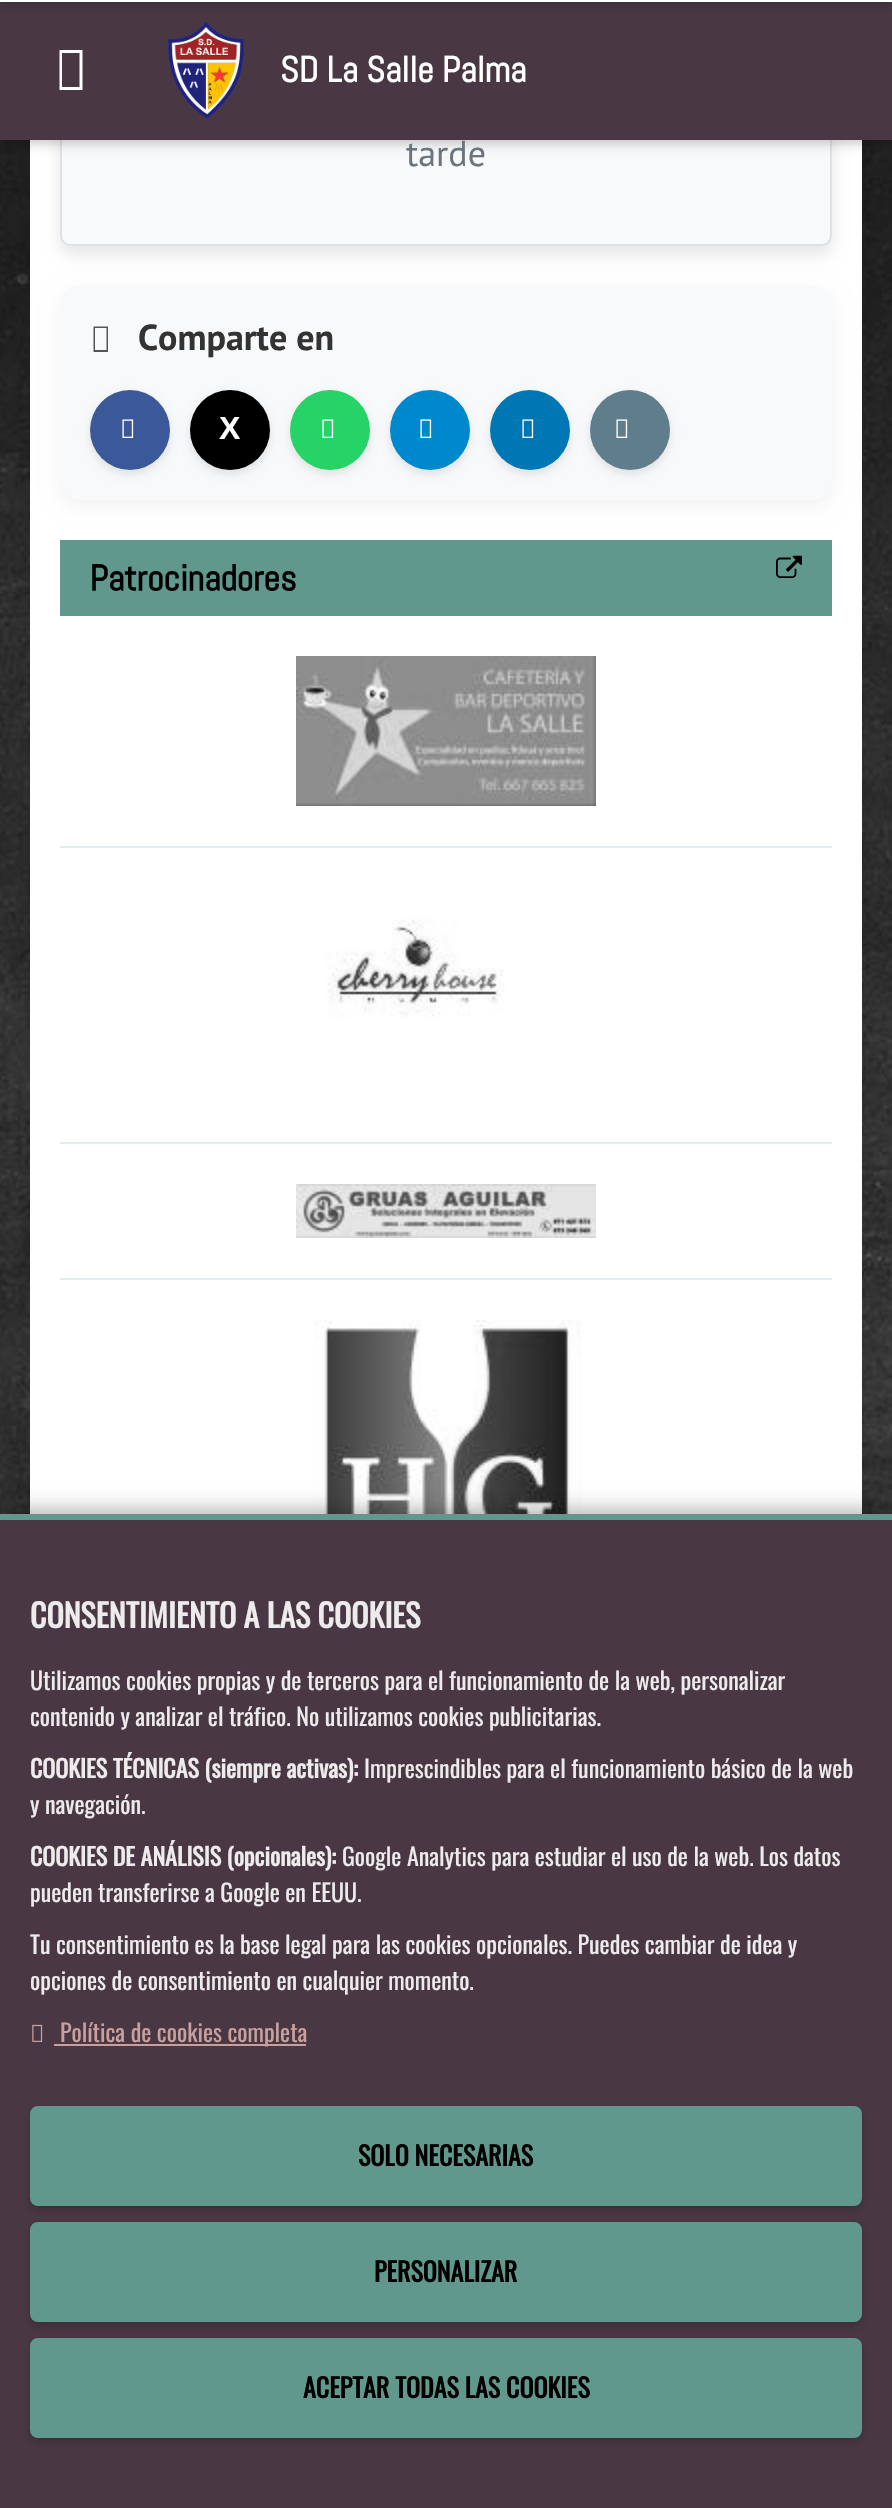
void draw(SkCanvas* canvas) {
	SkPaint fill;
	fill.setAntiAlias(true);
	auto makeFont = [&](const char* family, int weight, float size, bool italic = false) {
		SkFontStyle style(weight, SkFontStyle::kNormal_Width,
			italic ? SkFontStyle::kItalic_Slant : SkFontStyle::kUpright_Slant);
		SkFont result(fontMgr->matchFamilyStyle(family, style), size);
		result.setSubpixel(true);
		return result;
	};
	auto text = [&](const char* s, float x, float y, const SkFont& font) {
		canvas->drawString(s, x, y, font, fill);
	};
	auto box = [&](float l, float t, float r, float b) {
		canvas->drawRect(SkRect::MakeLTRB(l, t, r, b), fill);
	};
	auto roundBox = [&](float l, float t, float r, float b, float radius) {
		canvas->drawRoundRect(SkRect::MakeLTRB(l, t, r, b), radius, radius, fill);
	};
	auto picture = [&](const char* path, float l, float t, float r, float b) {
		auto image = SkImages::DeferredFromEncodedData(SkData::MakeFromFileName(path));
		canvas->drawImageRect(image, SkRect::MakeLTRB(l, t, r, b), SkSamplingOptions());
	};
	canvas->clear(0xFFFFFFFF);
	picture("image0.png", 0, 140, 892, 1514);
	fill.setColor(0x14000000);
	fill.setMaskFilter(SkMaskFilter::MakeBlur(kNormal_SkBlurStyle, 10));
	canvas->drawRoundRect(SkRect::MakeLTRB(30, -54, 862, 2464), 24, 24, fill);
	fill.setMaskFilter(nullptr);
	fill.setColor(0xFFFFFFFF);
	box(30, 140, 862, 1514);
	fill.setColor(0x1A000000);
	fill.setMaskFilter(SkMaskFilter::MakeBlur(kNormal_SkBlurStyle, 8));
	canvas->drawRoundRect(SkRect::MakeLTRB(60, -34, 832, 254), 10, 10, fill);
	fill.setMaskFilter(nullptr);
	fill.setColor(0xFFF8F9FA);
	canvas->drawRoundRect(SkRect::MakeLTRB(61, -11, 831, 245), 9, 9, fill);
	fill.setStyle(SkPaint::kStroke_Style);
	fill.setStrokeWidth(2);
	fill.setColor(0xFFDEE2E6);
	canvas->drawRoundRect(SkRect::MakeLTRB(61, -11, 831, 245), 9, 9, fill);
	fill.setStyle(SkPaint::kFill_Style);
	fill.setColor(0x33000000);
	fill.setMaskFilter(SkMaskFilter::MakeBlur(kNormal_SkBlurStyle, 5));
	canvas->drawRect(SkRect::MakeLTRB(0, 4, 892, 144), fill);
	fill.setMaskFilter(nullptr);
	fill.setColor(0xFF493843);
	box(0, 2, 892, 140);
	picture("image1.png", 168, 21, 244, 119);
	fill.setColor(0x33000000);
	fill.setMaskFilter(SkMaskFilter::MakeBlur(kNormal_SkBlurStyle, 5));
	canvas->drawRect(SkRect::MakeLTRB(0, -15, 892, 6), fill);
	fill.setMaskFilter(nullptr);
	fill.setColor(0xFFFFFFFF);
	box(0, 0, 892, 2);
	canvas->drawPath(SkPathBuilder().moveTo(59.5f, 90).lineTo(59.5f, 50).lineTo(82.5f, 50).lineTo(82.5f, 90).close().moveTo(62, 87).lineTo(79.5f, 87).lineTo(79.5f, 53).lineTo(62, 53).close().detach(), fill);
	fill.setColor(0x0D000000);
	fill.setMaskFilter(SkMaskFilter::MakeBlur(kNormal_SkBlurStyle, 10));
	canvas->drawRoundRect(SkRect::MakeLTRB(60, 292, 832, 506), 20, 20, fill);
	fill.setMaskFilter(nullptr);
	fill.setColor(0xFFF8F9FA);
	roundBox(60, 286, 832, 500, 20);
	fill.setColor(0xFF555555);
	canvas->drawPath(SkPathBuilder().moveTo(93.5f, 352).lineTo(93.5f, 326.5f).lineTo(108, 326.5f).lineTo(108, 352).close().moveTo(95, 350).lineTo(106.5f, 350).lineTo(106.5f, 328).lineTo(95, 328).close().detach(), fill);
	fill.setColor(0x1A000000);
	fill.setMaskFilter(SkMaskFilter::MakeBlur(kNormal_SkBlurStyle, 5));
	canvas->drawRoundRect(SkRect::MakeLTRB(90, 394, 170, 474), 40, 40, fill);
	fill.setMaskFilter(nullptr);
	fill.setColor(0xFF3B5998);
	canvas->drawCircle(130, 430, 40, fill);
	picture("image2.png", 122, 419, 134, 438);
	fill.setColor(0x1A000000);
	fill.setMaskFilter(SkMaskFilter::MakeBlur(kNormal_SkBlurStyle, 5));
	canvas->drawRoundRect(SkRect::MakeLTRB(190, 394, 270, 474), 40, 40, fill);
	fill.setMaskFilter(nullptr);
	fill.setColor(0xFF000000);
	canvas->drawCircle(230, 430, 40, fill);
	fill.setColor(0x1A000000);
	fill.setMaskFilter(SkMaskFilter::MakeBlur(kNormal_SkBlurStyle, 5));
	canvas->drawRoundRect(SkRect::MakeLTRB(290, 394, 370, 474), 40, 40, fill);
	fill.setMaskFilter(nullptr);
	fill.setColor(0xFF25D366);
	canvas->drawCircle(330, 430, 40, fill);
	picture("image3.png", 322, 419, 334, 438);
	fill.setColor(0x1A000000);
	fill.setMaskFilter(SkMaskFilter::MakeBlur(kNormal_SkBlurStyle, 5));
	canvas->drawRoundRect(SkRect::MakeLTRB(390, 394, 470, 474), 40, 40, fill);
	fill.setMaskFilter(nullptr);
	fill.setColor(0xFF0088CC);
	canvas->drawCircle(430, 430, 40, fill);
	picture("image4.png", 420, 419, 432, 438);
	fill.setColor(0x1A000000);
	fill.setMaskFilter(SkMaskFilter::MakeBlur(kNormal_SkBlurStyle, 5));
	canvas->drawRoundRect(SkRect::MakeLTRB(490, 394, 570, 474), 40, 40, fill);
	fill.setMaskFilter(nullptr);
	fill.setColor(0xFF0077B5);
	canvas->drawCircle(530, 430, 40, fill);
	picture("image5.png", 522, 419, 534, 438);
	fill.setColor(0x1A000000);
	fill.setMaskFilter(SkMaskFilter::MakeBlur(kNormal_SkBlurStyle, 5));
	canvas->drawRoundRect(SkRect::MakeLTRB(590, 394, 670, 474), 40, 40, fill);
	fill.setMaskFilter(nullptr);
	fill.setColor(0xFF607D8B);
	canvas->drawCircle(630, 430, 40, fill);
	picture("image6.png", 616, 419, 628, 438);
	picture("image7.png", 60, 540, 832, 1514);
	fill.setColor(0x4D000000);
	fill.setMaskFilter(SkMaskFilter::MakeBlur(kNormal_SkBlurStyle, 10));
	canvas->drawRect(SkRect::MakeLTRB(0, 1510, 892, 2504), fill);
	fill.setMaskFilter(nullptr);
	fill.setColor(0xFF493843);
	box(0, 1520, 892, 2508);
	fill.setColor(0xFF61988E);
	box(0, 1514, 892, 1520);
	picture("image8.png", 32, 2024, 43, 2042);
	fill.setColor(0xFFC7A09F);
	box(54, 2044, 306, 2046);
	fill.setColor(0x33000000);
	fill.setMaskFilter(SkMaskFilter::MakeBlur(kNormal_SkBlurStyle, 4));
	canvas->drawRoundRect(SkRect::MakeLTRB(30, 2110, 862, 2210), 8, 8, fill);
	fill.setMaskFilter(nullptr);
	fill.setColor(0xFF61988E);
	canvas->drawRoundRect(SkRect::MakeLTRB(32, 2108, 860, 2204), 6, 6, fill);
	fill.setStyle(SkPaint::kStroke_Style);
	fill.setStrokeWidth(4);
	canvas->drawRoundRect(SkRect::MakeLTRB(32, 2108, 860, 2204), 6, 6, fill);
	fill.setStyle(SkPaint::kFill_Style);
	fill.setColor(0x33000000);
	fill.setMaskFilter(SkMaskFilter::MakeBlur(kNormal_SkBlurStyle, 4));
	canvas->drawRoundRect(SkRect::MakeLTRB(30, 2226, 862, 2326), 8, 8, fill);
	fill.setMaskFilter(nullptr);
	fill.setColor(0xFF61988E);
	canvas->drawRoundRect(SkRect::MakeLTRB(32, 2224, 860, 2320), 6, 6, fill);
	fill.setStyle(SkPaint::kStroke_Style);
	canvas->drawRoundRect(SkRect::MakeLTRB(32, 2224, 860, 2320), 6, 6, fill);
	fill.setStyle(SkPaint::kFill_Style);
	fill.setColor(0x33000000);
	fill.setMaskFilter(SkMaskFilter::MakeBlur(kNormal_SkBlurStyle, 4));
	canvas->drawRoundRect(SkRect::MakeLTRB(30, 2342, 862, 2442), 8, 8, fill);
	fill.setMaskFilter(nullptr);
	fill.setColor(0xFF61988E);
	canvas->drawRoundRect(SkRect::MakeLTRB(32, 2340, 860, 2436), 6, 6, fill);
	fill.setStyle(SkPaint::kStroke_Style);
	canvas->drawRoundRect(SkRect::MakeLTRB(32, 2340, 860, 2436), 6, 6, fill);
	auto font1 = makeFont("Abel", 700, 36);
	fill.setStyle(SkPaint::kFill_Style);
	fill.setColor(0xFFFFFFFF);
	text("SD La Salle Palma", 280, 82, font1);
	auto font2 = makeFont("PT Sans", 400, 36);
	fill.setColor(0xFF6C757D);
	text("tarde", 406, 166, font2);
	auto font3 = makeFont("PT Sans", 700, 36);
	fill.setColor(0xFF333333);
	text("Comparte en", 138, 350, font3);
	auto font4 = makeFont("Liberation Sans", 700, 32);
	fill.setColor(0xFFFFFFFF);
	text("X", 219, 439, font4);
	auto font5 = makeFont("Oswald", 700, 32);
	fill.setColor(0xFFEDEBEC);
	text("CONSENTIMIENTO A LAS COOKIES", 30, 1628, font5);
	auto font6 = makeFont("Oswald", 400, 24);
	text("Utilizamos cookies propias y de terceros para el funcionamiento de la web, personalizar", 30, 1690, font6);
	text("contenido y analizar el tráfico. No utilizamos cookies publicitarias.", 30, 1726, font6);
	auto font7 = makeFont("Oswald", 700, 24);
	text("COOKIES TÉCNICAS (siempre activas):", 30, 1778, font7);
	text("Imprescindibles para el funcionamiento básico de la web", 364, 1778, font6);
	text("y navegación.", 30, 1814, font6);
	text("COOKIES DE ANÁLISIS (opcionales):", 30, 1866, font7);
	text("Google Analytics para estudiar el uso de la web. Los datos", 342, 1866, font6);
	text("pueden transferirse a Google en EEUU.", 30, 1902, font6);
	text("Tu consentimiento es la base legal para las cookies opcionales. Puedes cambiar de idea y", 30, 1954, font6);
	text("opciones de consentimiento en cualquier momento.", 30, 1990, font6);
	fill.setColor(0xFFC7A09F);
	text("Política de cookies completa", 60, 2042, font6);
	auto font8 = makeFont("Oswald", 700, 26);
	fill.setColor(0xFF000000);
	text("SOLO NECESARIAS", 358, 2166, font8);
	text("PERSONALIZAR", 374, 2282, font8);
	text("ACEPTAR TODAS LAS COOKIES", 303, 2398, font8);
}
